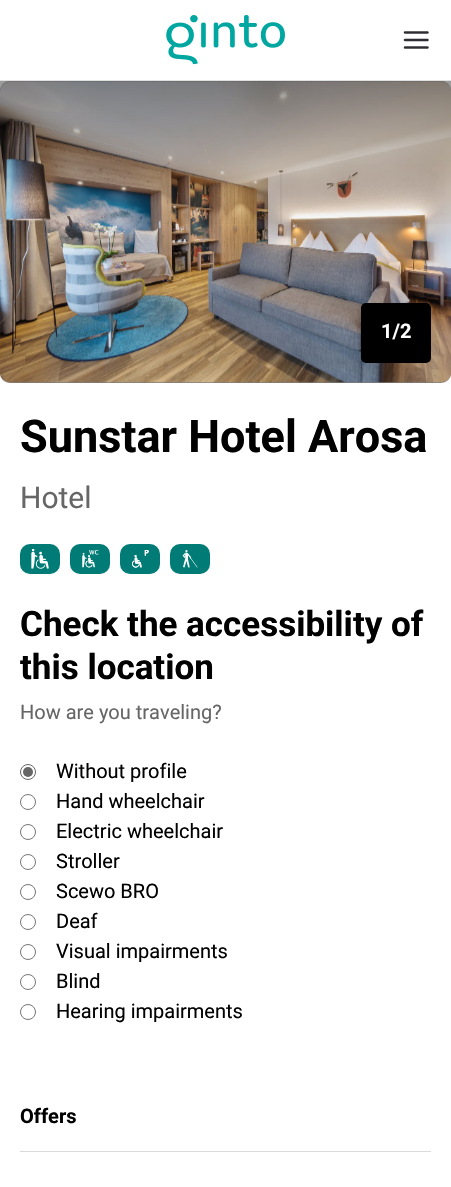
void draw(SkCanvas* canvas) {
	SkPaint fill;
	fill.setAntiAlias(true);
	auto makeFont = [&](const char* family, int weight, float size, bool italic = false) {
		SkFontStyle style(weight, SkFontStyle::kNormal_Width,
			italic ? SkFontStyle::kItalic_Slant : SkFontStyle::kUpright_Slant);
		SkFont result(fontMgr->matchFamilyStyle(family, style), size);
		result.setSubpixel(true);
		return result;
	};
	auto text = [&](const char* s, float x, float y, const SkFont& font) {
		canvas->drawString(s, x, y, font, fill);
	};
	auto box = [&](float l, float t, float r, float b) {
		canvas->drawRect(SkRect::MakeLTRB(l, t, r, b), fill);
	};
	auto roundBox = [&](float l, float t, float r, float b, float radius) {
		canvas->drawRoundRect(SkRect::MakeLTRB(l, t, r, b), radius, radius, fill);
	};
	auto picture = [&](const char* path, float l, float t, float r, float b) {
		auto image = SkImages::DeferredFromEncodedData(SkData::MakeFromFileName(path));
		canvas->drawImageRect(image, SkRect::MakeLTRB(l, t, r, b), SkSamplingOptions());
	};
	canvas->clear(0xFFFFFFFF);
	fill.setColor(0xFFE0E0E0);
	box(0, 80, 451, 81);
	picture("image0.png", 166, 15, 285, 65);
	picture("image1.png", 403, 31, 429, 49);
	fill.setColor(0xFF807D79);
	roundBox(0, 81, 451, 383, 10);
	picture("image2.png", 0, 81, 451, 383);
	{
		const SkColor colors[] = {0x66000000, 0x00000000};
		const float stops[] = {0, 0.5f};
		const SkPoint ends[] = {{226, 81}, {226, 383}};
		fill.setShader(SkGradientShader::MakeLinear(ends, colors, stops, 2, SkTileMode::kClamp));
		fill.setAlpha(255);
	}
	box(0, 81, 451, 224);
	fill.setShader(nullptr);
	fill.setColor(0xFF000000);
	roundBox(361, 303, 431, 363, 5);
	fill.setStyle(SkPaint::kStroke_Style);
	fill.setStrokeWidth(1);
	fill.setColor(0xFF666666);
	canvas->drawCircle(28, 772, 7.5f, fill);
	fill.setStyle(SkPaint::kFill_Style);
	canvas->drawCircle(28, 772, 5, fill);
	fill.setStyle(SkPaint::kStroke_Style);
	fill.setColor(0xFF767676);
	canvas->drawCircle(28, 802, 7.5f, fill);
	canvas->drawCircle(28, 832, 7.5f, fill);
	canvas->drawCircle(28, 862, 7.5f, fill);
	canvas->drawCircle(28, 892, 7.5f, fill);
	canvas->drawCircle(28, 922, 7.5f, fill);
	canvas->drawCircle(28, 952, 7.5f, fill);
	canvas->drawCircle(28, 982, 7.5f, fill);
	canvas->drawCircle(28, 1012, 7.5f, fill);
	fill.setStyle(SkPaint::kFill_Style);
	fill.setColor(0xFF007B76);
	roundBox(20, 544, 60, 574, 10);
	picture("image3.png", 31, 549, 49, 569);
	roundBox(70, 544, 110, 574, 10);
	picture("image4.png", 82, 549, 99, 568);
	roundBox(120, 544, 160, 574, 10);
	picture("image5.png", 132, 550, 149, 568);
	roundBox(170, 544, 210, 574, 10);
	picture("image6.png", 182, 550, 198, 568);
	fill.setColor(0xFFDBDBDB);
	box(20, 1151, 431, 1152);
	auto font1 = makeFont("Roboto", 700, 20);
	fill.setColor(0xFFFFFFFF);
	text("1/2", 381, 338, font1);
	auto font2 = makeFont("Roboto", 700, 45);
	fill.setColor(0xFF000000);
	text("Sunstar Hotel Arosa", 20, 452, font2);
	auto font3 = makeFont("Roboto", 400, 30);
	fill.setColor(0xFF666666);
	text("Hotel", 20, 508, font3);
	auto font4 = makeFont("Roboto", 700, 35);
	fill.setColor(0xFF000000);
	text("Check the accessibility of", 20, 636, font4);
	text("this location", 20, 679, font4);
	auto font5 = makeFont("Roboto", 400, 20);
	fill.setColor(0xFF666666);
	text("How are you traveling?", 20, 719, font5);
	fill.setColor(0xFF000000);
	text("Without profile", 56, 778, font5);
	text("Hand wheelchair", 56, 808, font5);
	text("Electric wheelchair", 56, 838, font5);
	text("Stroller", 56, 868, font5);
	text("Scewo BRO", 56, 898, font5);
	text("Deaf", 56, 928, font5);
	text("Visual impairments", 56, 958, font5);
	text("Blind", 56, 988, font5);
	text("Hearing impairments", 56, 1018, font5);
	text("Offers", 20, 1123, font1);
}
